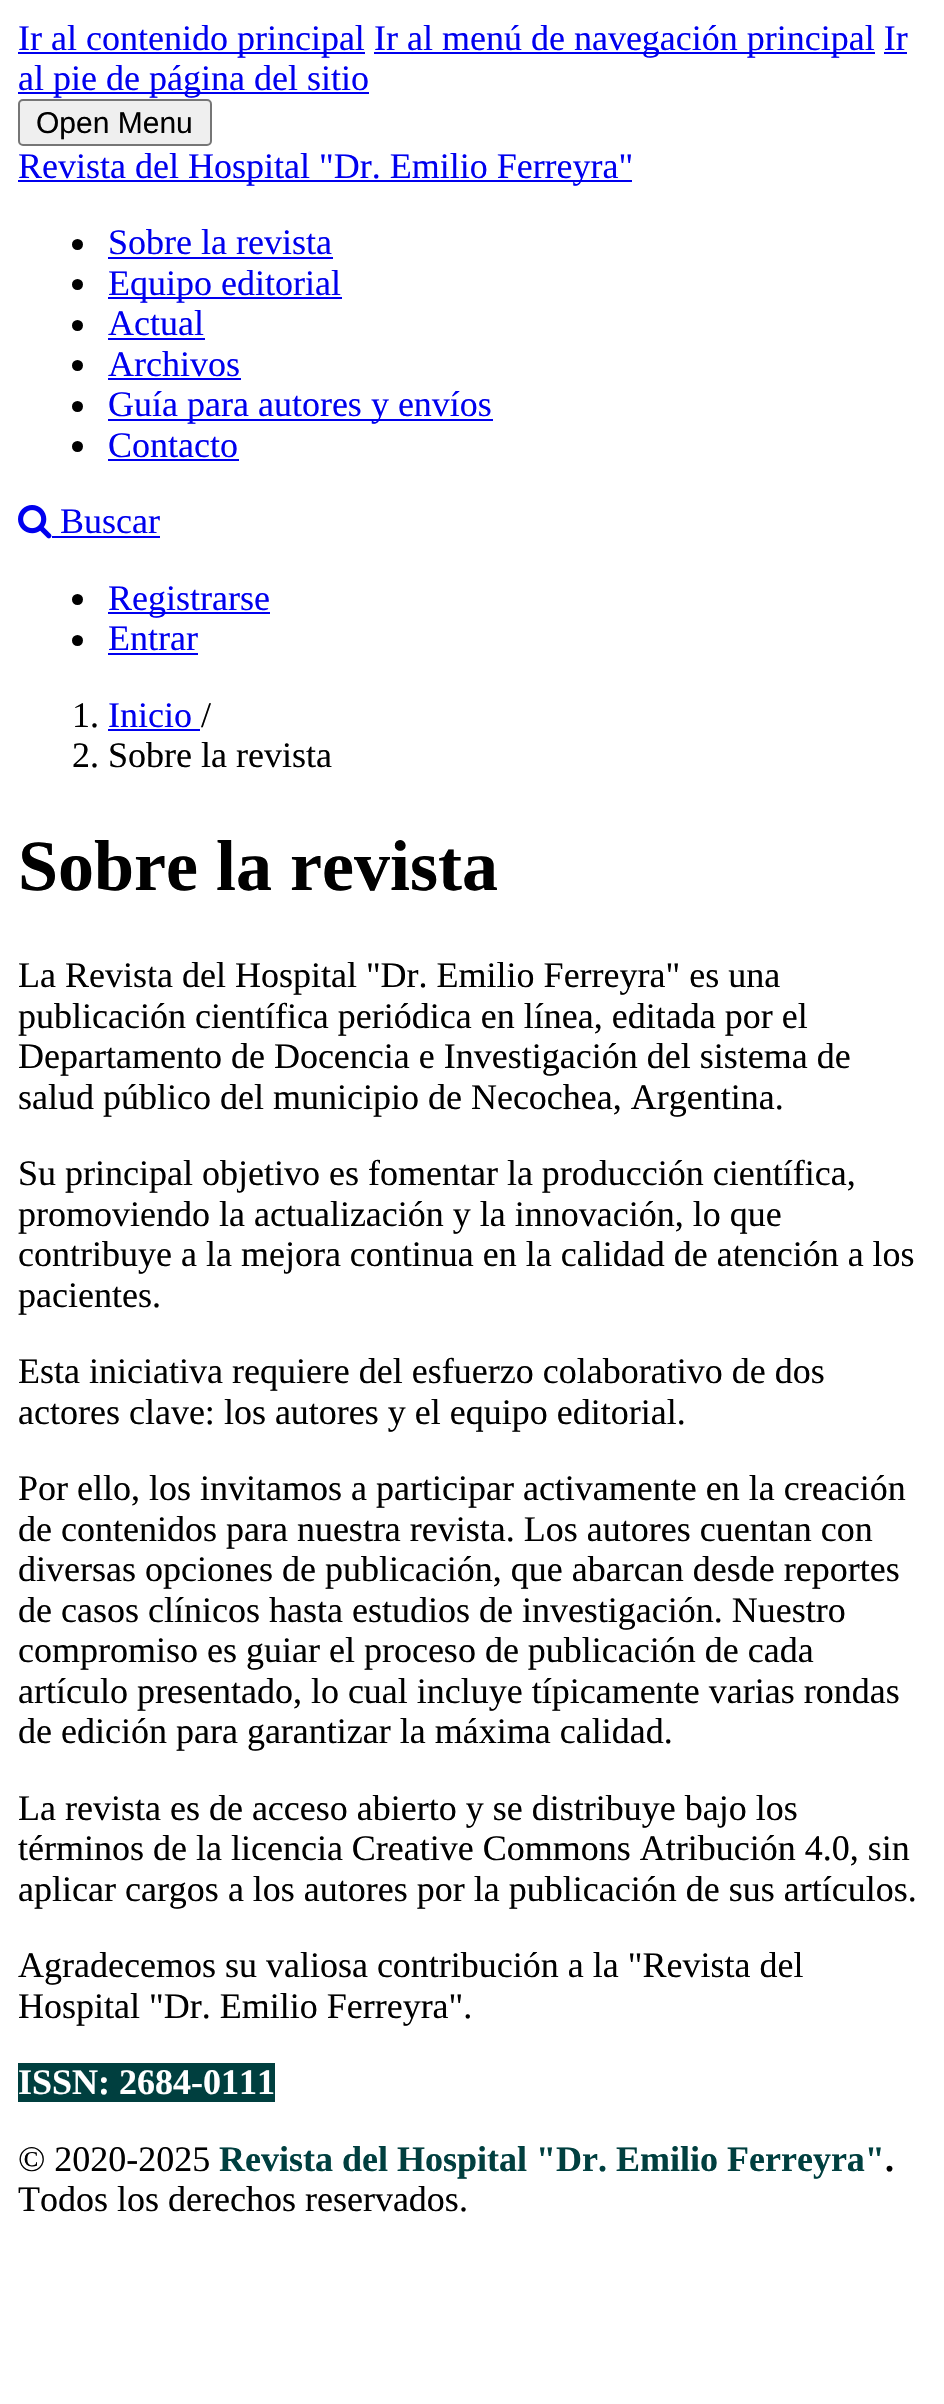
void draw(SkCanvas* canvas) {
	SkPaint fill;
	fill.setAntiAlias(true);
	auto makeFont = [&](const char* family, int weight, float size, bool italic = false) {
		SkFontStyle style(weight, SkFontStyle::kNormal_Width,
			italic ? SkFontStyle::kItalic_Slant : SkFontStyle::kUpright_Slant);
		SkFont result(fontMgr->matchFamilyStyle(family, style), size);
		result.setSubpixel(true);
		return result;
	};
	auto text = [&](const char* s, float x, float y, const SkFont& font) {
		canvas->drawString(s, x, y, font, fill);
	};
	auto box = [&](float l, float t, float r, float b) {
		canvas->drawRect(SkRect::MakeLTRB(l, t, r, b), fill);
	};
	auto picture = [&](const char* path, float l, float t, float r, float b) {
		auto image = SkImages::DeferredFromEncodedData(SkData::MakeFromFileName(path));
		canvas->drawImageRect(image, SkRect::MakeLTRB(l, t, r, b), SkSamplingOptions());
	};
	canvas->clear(0xFFFFFFFF);
	fill.setColor(0xFF0000EE);
	box(18, 52, 365, 54);
	box(374, 52, 875, 54);
	box(884, 52, 907, 54);
	box(18, 92, 369, 94);
	fill.setColor(0xFFEFEFEF);
	canvas->drawRoundRect(SkRect::MakeLTRB(19, 100, 211, 145), 4, 4, fill);
	fill.setStyle(SkPaint::kStroke_Style);
	fill.setStrokeWidth(2);
	fill.setColor(0xFF767676);
	canvas->drawRoundRect(SkRect::MakeLTRB(19, 100, 211, 145), 4, 4, fill);
	fill.setStyle(SkPaint::kFill_Style);
	fill.setColor(0xFF0000EE);
	box(18, 180, 632, 182);
	fill.setColor(0xFF000000);
	canvas->drawCircle(77.5f, 244.5f, 5.5f, fill);
	fill.setColor(0xFF0000EE);
	box(108, 257, 333, 259);
	fill.setColor(0xFF000000);
	canvas->drawCircle(77.5f, 284.5f, 5.5f, fill);
	fill.setColor(0xFF0000EE);
	box(108, 297, 342, 299);
	fill.setColor(0xFF000000);
	canvas->drawCircle(77.5f, 325.5f, 5.5f, fill);
	fill.setColor(0xFF0000EE);
	box(108, 338, 205, 340);
	fill.setColor(0xFF000000);
	canvas->drawCircle(77.5f, 365.5f, 5.5f, fill);
	fill.setColor(0xFF0000EE);
	box(108, 378, 241, 380);
	fill.setColor(0xFF000000);
	canvas->drawCircle(77.5f, 406.5f, 5.5f, fill);
	fill.setColor(0xFF0000EE);
	box(108, 419, 493, 421);
	fill.setColor(0xFF000000);
	canvas->drawCircle(77.5f, 446.5f, 5.5f, fill);
	fill.setColor(0xFF0000EE);
	box(108, 459, 239, 461);
	picture("image0.png", 18, 505, 52, 539);
	box(52, 536, 160, 538);
	fill.setColor(0xFF000000);
	canvas->drawCircle(77.5f, 599.5f, 5.5f, fill);
	fill.setColor(0xFF0000EE);
	box(108, 612, 270, 614);
	fill.setColor(0xFF000000);
	canvas->drawCircle(77.5f, 640.5f, 5.5f, fill);
	fill.setColor(0xFF0000EE);
	box(108, 653, 198, 655);
	box(108, 729, 200, 731);
	fill.setColor(0xFF003F3F);
	box(18, 2063, 275, 2102);
	auto font1 = makeFont("Liberation Serif", 400, 36);
	fill.setColor(0xFF0000EE);
	text("Ir al contenido principal", 18, 50, font1);
	text("Ir al menú de navegación principal Ir", 374, 50, font1);
	text("al pie de página del sitio", 18, 90, font1);
	auto font2 = makeFont("Liberation Sans", 400, 30);
	fill.setColor(0xFF000000);
	text("Open Menu", 36, 133, font2);
	fill.setColor(0xFF0000EE);
	text("Revista del Hospital \"Dr. Emilio Ferreyra\"", 18, 178, font1);
	text("Sobre la revista", 108, 254, font1);
	text("Equipo editorial", 108, 295, font1);
	text("Actual", 108, 335, font1);
	text("Archivos", 108, 376, font1);
	text("Guía para autores y envíos", 108, 416, font1);
	text("Contacto", 108, 457, font1);
	text("Buscar", 60, 533, font1);
	text("Registrarse", 108, 610, font1);
	text("Entrar", 108, 650, font1);
	fill.setColor(0xFF000000);
	text("1.", 72, 727, font1);
	fill.setColor(0xFF0000EE);
	text("Inicio", 108, 727, font1);
	fill.setColor(0xFF000000);
	text("/", 201, 727, font1);
	text("2. Sobre la revista", 72, 767, font1);
	auto font3 = makeFont("Liberation Serif", 700, 72);
	text("Sobre la revista", 18, 890, font3);
	text("La Revista del Hospital \"Dr. Emilio Ferreyra\" es una", 18, 987, font1);
	text("publicación científica periódica en línea, editada por el", 18, 1028, font1);
	text("Departamento de Docencia e Investigación del sistema de", 18, 1068, font1);
	text("salud público del municipio de Necochea, Argentina.", 18, 1109, font1);
	text("Su principal objetivo es fomentar la producción científica,", 18, 1185, font1);
	text("promoviendo la actualización y la innovación, lo que", 18, 1226, font1);
	text("contribuye a la mejora continua en la calidad de atención a los", 18, 1266, font1);
	text("pacientes.", 18, 1307, font1);
	text("Esta iniciativa requiere del esfuerzo colaborativo de dos", 18, 1383, font1);
	text("actores clave: los autores y el equipo editorial.", 18, 1424, font1);
	text("Por ello, los invitamos a participar activamente en la creación", 18, 1500, font1);
	text("de contenidos para nuestra revista. Los autores cuentan con", 18, 1541, font1);
	text("diversas opciones de publicación, que abarcan desde reportes", 18, 1581, font1);
	text("de casos clínicos hasta estudios de investigación. Nuestro", 18, 1622, font1);
	text("compromiso es guiar el proceso de publicación de cada", 18, 1662, font1);
	text("artículo presentado, lo cual incluye típicamente varias rondas", 18, 1703, font1);
	text("de edición para garantizar la máxima calidad.", 18, 1743, font1);
	text("La revista es de acceso abierto y se distribuye bajo los", 18, 1820, font1);
	text("términos de la licencia Creative Commons Atribución 4.0, sin", 18, 1860, font1);
	text("aplicar cargos a los autores por la publicación de sus artículos.", 18, 1901, font1);
	text("Agradecemos su valiosa contribución a la \"Revista del", 18, 1977, font1);
	text("Hospital \"Dr. Emilio Ferreyra\".", 18, 2018, font1);
	auto font4 = makeFont("Liberation Serif", 700, 36);
	fill.setColor(0xFFFFFFFF);
	text("ISSN: 2684-0111", 18, 2094, font4);
	fill.setColor(0xFF000000);
	text("© 2020-2025", 18, 2171, font1);
	fill.setColor(0xFF003F3F);
	text("Revista del Hospital \"Dr. Emilio Ferreyra\"", 219, 2171, font4);
	fill.setColor(0xFF000000);
	text(".", 885, 2171, font4);
	text("Todos los derechos reservados.", 18, 2211, font1);
}
